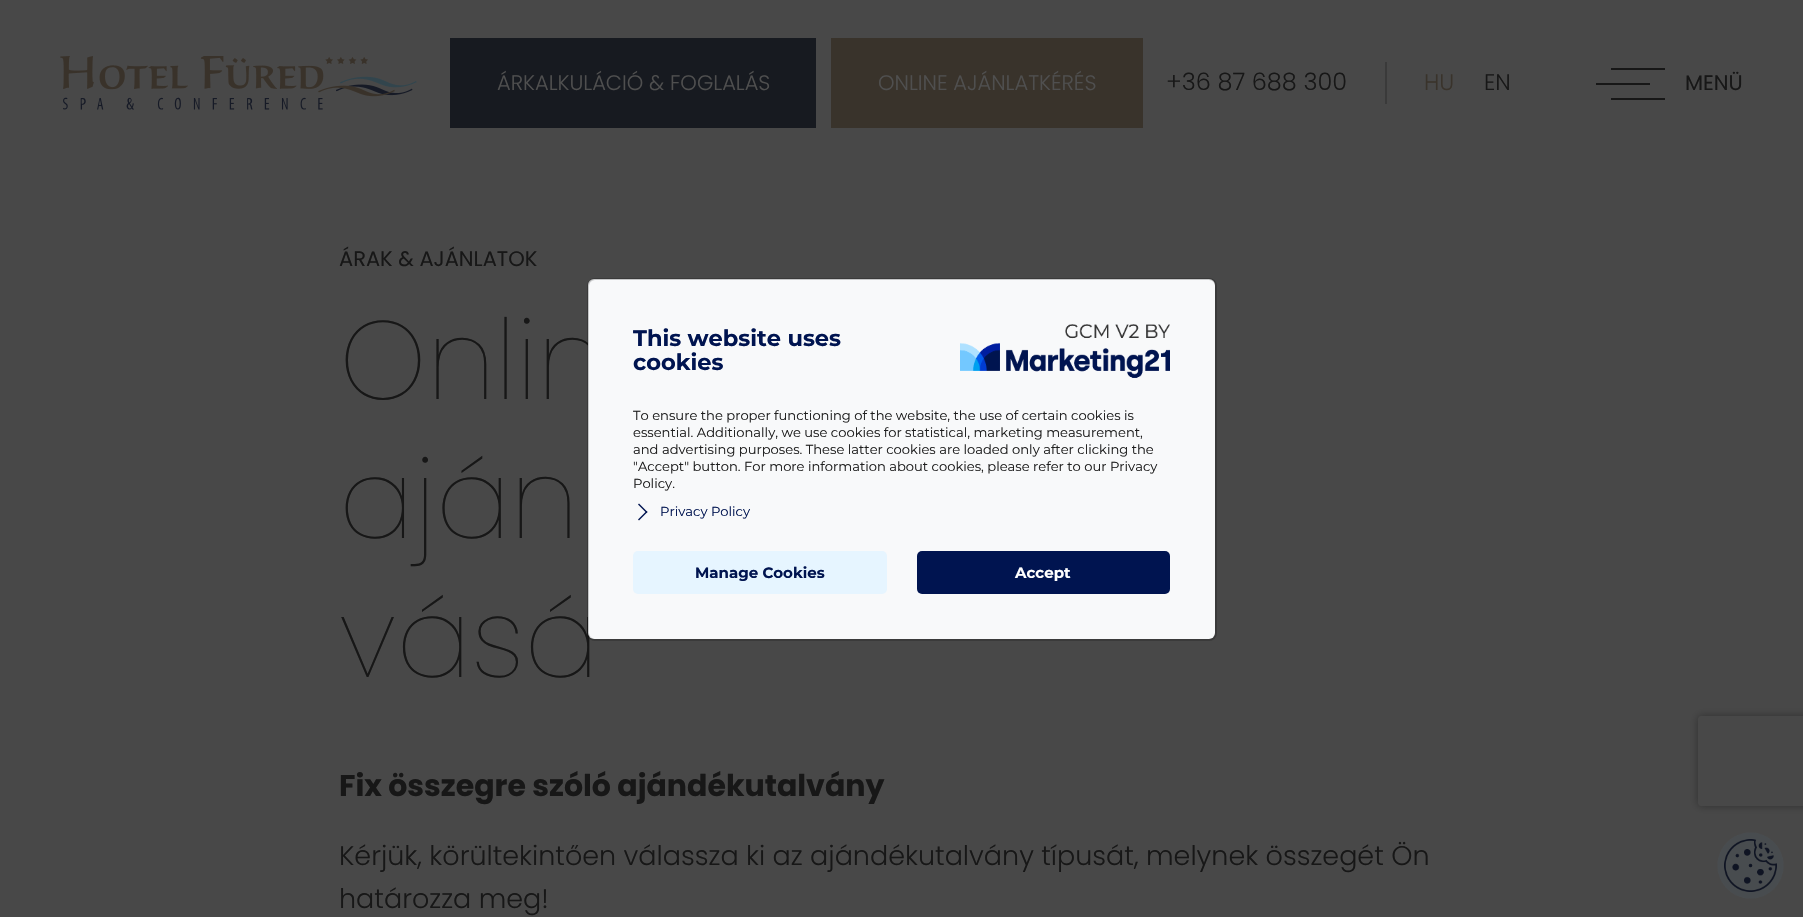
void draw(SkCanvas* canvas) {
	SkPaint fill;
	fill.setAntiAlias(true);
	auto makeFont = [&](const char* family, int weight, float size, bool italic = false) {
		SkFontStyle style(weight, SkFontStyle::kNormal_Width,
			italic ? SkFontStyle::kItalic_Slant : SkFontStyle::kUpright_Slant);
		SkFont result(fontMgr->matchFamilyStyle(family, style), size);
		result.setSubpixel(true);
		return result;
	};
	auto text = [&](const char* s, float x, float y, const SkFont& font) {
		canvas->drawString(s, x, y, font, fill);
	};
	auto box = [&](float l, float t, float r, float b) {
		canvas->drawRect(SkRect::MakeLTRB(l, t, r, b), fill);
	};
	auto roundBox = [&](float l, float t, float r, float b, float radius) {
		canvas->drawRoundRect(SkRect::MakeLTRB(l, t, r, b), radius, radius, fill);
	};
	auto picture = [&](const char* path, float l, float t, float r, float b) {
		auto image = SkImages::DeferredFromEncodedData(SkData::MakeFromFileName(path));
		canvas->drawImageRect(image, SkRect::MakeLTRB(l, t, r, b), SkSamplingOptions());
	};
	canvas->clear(0xFF484848);
	picture("image0.png", 60, 56, 417, 110);
	fill.setColor(0xFF171A20);
	box(450, 38, 816, 128);
	fill.setColor(0xFF39332B);
	box(831, 38, 1143, 128);
	fill.setColor(0xFF3A3A3A);
	box(1385, 62, 1387, 104);
	fill.setColor(0xFF171717);
	box(1611, 68, 1665, 70);
	box(1596, 83, 1650, 85);
	box(1611, 98, 1665, 100);
	canvas->save();
	canvas->clipPath(SkPathBuilder(SkPathFillType::kEvenOdd).moveTo(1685, 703).lineTo(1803, 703).lineTo(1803, 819).lineTo(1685, 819).close().moveTo(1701, 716).lineTo(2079, 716).cubicTo(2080.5f, 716, 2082, 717.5f, 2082, 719).lineTo(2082, 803).cubicTo(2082, 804.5f, 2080.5f, 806, 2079, 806).lineTo(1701, 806).cubicTo(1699.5f, 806, 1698, 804.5f, 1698, 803).lineTo(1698, 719).cubicTo(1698, 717.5f, 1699.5f, 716, 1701, 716).close().detach(), true);
	fill.setColor(0xFF2F2F2F);
	fill.setMaskFilter(SkMaskFilter::MakeBlur(kNormal_SkBlurStyle, 4));
	canvas->drawRoundRect(SkRect::MakeLTRB(1698, 716, 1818, 806), 3, 3, fill);
	fill.setMaskFilter(nullptr);
	canvas->restore();
	picture("image2.png", 1717, 832, 1784, 899);
	auto font1 = makeFont("Poppins", 300, 21);
	fill.setColor(0xFF4F4F4F);
	text("ÁRKALKULÁCIÓ & FOGLALÁS", 497, 90, font1);
	text("ONLINE AJÁNLATKÉRÉS", 878, 90, font1);
	auto font2 = makeFont("Poppins", 300, 24);
	fill.setColor(0xFF171717);
	text("+36 87 688 300", 1166, 90, font2);
	auto font3 = makeFont("Poppins", 300, 22.5f);
	fill.setColor(0xFF39332B);
	text("HU", 1424, 90, font3);
	fill.setColor(0xFF171717);
	text("EN", 1484, 90, font3);
	auto font4 = makeFont("Poppins", 400, 21);
	text("MENÜ", 1685, 90, font4);
	text("ÁRAK & AJÁNLATOK", 339, 266, font4);
	auto font5 = makeFont("Poppins", 100, 111);
	text("Onlin", 339, 399, font5);
	text("aján", 339, 538, font5);
	text("vásá", 339, 677, font5);
	auto font6 = makeFont("Poppins", 700, 30);
	text("Fix összegre szóló ajándékutalvány", 339, 796, font6);
	auto font7 = makeFont("Poppins", 300, 27);
	text("Kérjük, körültekintően válassza ki az ajándékutalvány típusát, melynek összegét Ön", 339, 865, font7);
	text("határozza meg!", 339, 908, font7);
	fill.setColor(0xFFF8F9FA);
	roundBox(588, 279, 1215, 639, 6);
	fill.setStyle(SkPaint::kStroke_Style);
	fill.setStrokeWidth(2);
	fill.setColor(0x33000000);
	canvas->drawRoundRect(SkRect::MakeLTRB(588, 279, 1216, 640), 7, 7, fill);
	auto font8 = makeFont("Montserrat", 700, 22.5f);
	fill.setStyle(SkPaint::kFill_Style);
	fill.setColor(0xFF001450);
	text("This website uses", 633, 346, font8);
	text("cookies", 633, 370, font8);
	picture("image1.png", 960, 324, 1170, 378);
	auto font9 = makeFont("Montserrat", 400, 13.1f);
	fill.setColor(0xFF1E1E1E);
	text("To ensure the proper functioning of the website, the use of certain cookies is", 633, 420, font9);
	text("essential. Additionally, we use cookies for statistical, marketing measurement,", 633, 437, font9);
	text("and advertising purposes. These latter cookies are loaded only after clicking the", 633, 454, font9);
	text("\"Accept\" button. For more information about cookies, please refer to our Privacy", 633, 471, font9);
	text("Policy.", 633, 488, font9);
	fill.setColor(0xFF001450);
	canvas->drawPath(SkPathBuilder().moveTo(639, 503.5f).lineTo(647.5f, 512).lineTo(646.5f, 513).lineTo(638, 504.5f).close().detach(), fill);
	canvas->drawPath(SkPathBuilder().moveTo(646.5f, 511).lineTo(647.5f, 512).lineTo(639, 520.5f).lineTo(638, 519.5f).close().detach(), fill);
	text("Privacy Policy", 660, 516, font9);
	fill.setColor(0xFFE6F5FF);
	roundBox(633, 551, 887, 594, 5);
	auto font10 = makeFont("Montserrat", 700, 15);
	fill.setColor(0xFF001450);
	text("Manage Cookies", 695, 578, font10);
	roundBox(917, 551, 1170, 594, 5);
	fill.setColor(0xFFFFFFFF);
	text("Accept", 1015, 578, font10);
}
